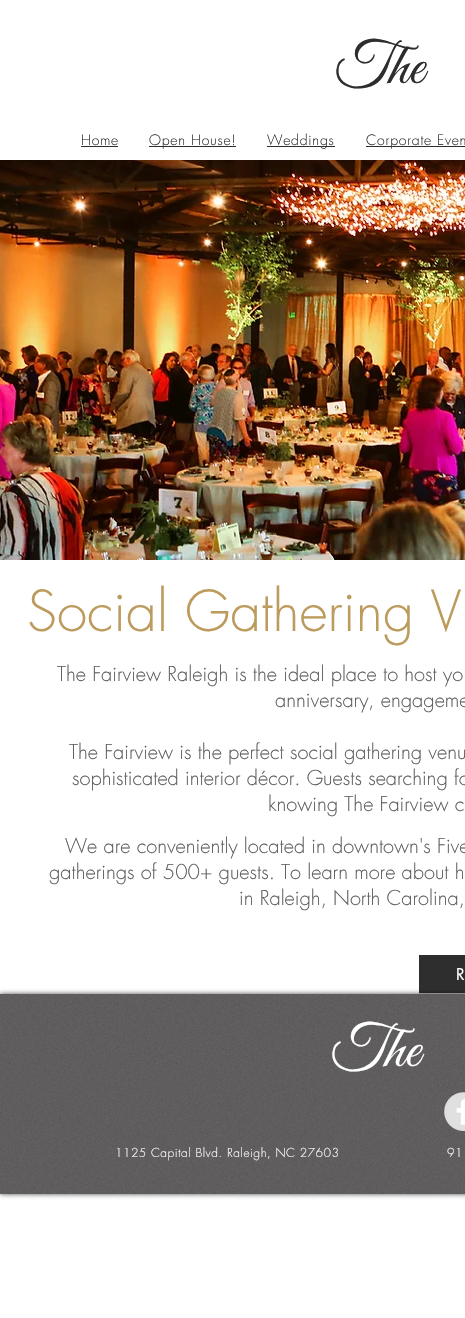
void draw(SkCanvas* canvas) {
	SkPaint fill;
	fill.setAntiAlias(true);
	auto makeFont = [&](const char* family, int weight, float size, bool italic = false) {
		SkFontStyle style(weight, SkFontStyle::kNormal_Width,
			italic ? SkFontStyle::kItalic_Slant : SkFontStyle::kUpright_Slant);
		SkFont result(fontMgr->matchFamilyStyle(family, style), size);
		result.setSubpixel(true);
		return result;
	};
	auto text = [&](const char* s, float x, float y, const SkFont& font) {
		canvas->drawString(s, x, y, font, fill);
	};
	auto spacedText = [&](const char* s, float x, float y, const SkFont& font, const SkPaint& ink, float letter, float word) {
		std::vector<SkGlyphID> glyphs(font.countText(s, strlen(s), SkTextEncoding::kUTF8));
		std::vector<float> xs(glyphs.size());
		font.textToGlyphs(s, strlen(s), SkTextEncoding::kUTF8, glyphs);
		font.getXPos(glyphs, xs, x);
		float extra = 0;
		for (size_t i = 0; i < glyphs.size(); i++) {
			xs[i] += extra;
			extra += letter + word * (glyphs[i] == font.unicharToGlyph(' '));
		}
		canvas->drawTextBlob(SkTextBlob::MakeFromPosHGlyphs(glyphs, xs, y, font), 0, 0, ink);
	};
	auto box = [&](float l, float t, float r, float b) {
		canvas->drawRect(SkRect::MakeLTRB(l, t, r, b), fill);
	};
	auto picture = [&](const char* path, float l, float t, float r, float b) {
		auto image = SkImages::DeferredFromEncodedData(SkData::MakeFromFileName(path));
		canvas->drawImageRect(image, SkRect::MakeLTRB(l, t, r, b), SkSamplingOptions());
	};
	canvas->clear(0xFFFFFFFF);
	fill.setColor(0xFF2F2E2E);
	box(81, 146, 118, 147);
	box(149, 146, 236, 147);
	box(267, 146, 335, 147);
	box(366, 146, 465, 147);
	picture("image0.png", 0, 160, 465, 560);
	box(419, 955, 465, 993);
	fill.setColor(0xFFCBCBCB);
	box(419, 993, 465, 994);
	fill.setColor(0xB3000000);
	fill.setMaskFilter(SkMaskFilter::MakeBlur(kNormal_SkBlurStyle, 2.5f));
	canvas->drawRect(SkRect::MakeLTRB(0, 994, 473, 1194), fill);
	fill.setMaskFilter(nullptr);
	fill.setColor(0xFF605E5E);
	box(0, 994, 465, 1194);
	picture("image1.png", 0, 994, 465, 1194);
	picture("image2.png", 444, 1092, 465, 1131);
	auto font1 = makeFont("Great Vibes", 400, 60);
	fill.setColor(0xFF2F2E2E);
	text("The", 334, 83, font1);
	auto font2 = makeFont("futura", 300, 14);
	spacedText("Home", 81, 145, font2, fill, 0.75f, 0);
	spacedText("Open House!", 149, 145, font2, fill, 0.75f, 0);
	spacedText("Weddings", 267, 145, font2, fill, 0.75f, 0);
	spacedText("Corporate Even", 366, 145, font2, fill, 0.75f, 0);
	auto font3 = makeFont("futura", 300, 55);
	fill.setColor(0xFFBC9B5D);
	text("Social Gathering V", 27, 631, font3);
	auto font4 = makeFont("futura", 300, 20);
	fill.setColor(0xFF605E5E);
	text("The Fairview Raleigh is the ideal place to host yo", 57, 681, font4);
	text("anniversary, engageme", 275, 707, font4);
	text("The Fairview is the perfect social gathering venu", 69, 759, font4);
	text("sophisticated interior décor. Guests searching fo", 72, 785, font4);
	text("knowing The Fairview c", 268, 811, font4);
	text("We are conveniently located in downtown's Five", 65, 853, font4);
	text("gatherings of 500+ guests. To learn more about h", 49, 879, font4);
	text("in Raleigh, North Carolina,", 239, 905, font4);
	auto font5 = makeFont("futura", 400, 16);
	fill.setColor(0xFFFFFFFF);
	text("R", 456, 980, font5);
	text("The", 330, 1066, font1);
	auto font6 = makeFont("futura", 300, 12);
	spacedText("1125 Capital Blvd. Raleigh, NC 27603", 115, 1157, font6, fill, 0.5f, 0);
	spacedText("91", 447, 1157, font6, fill, 0.5f, 0);
}
